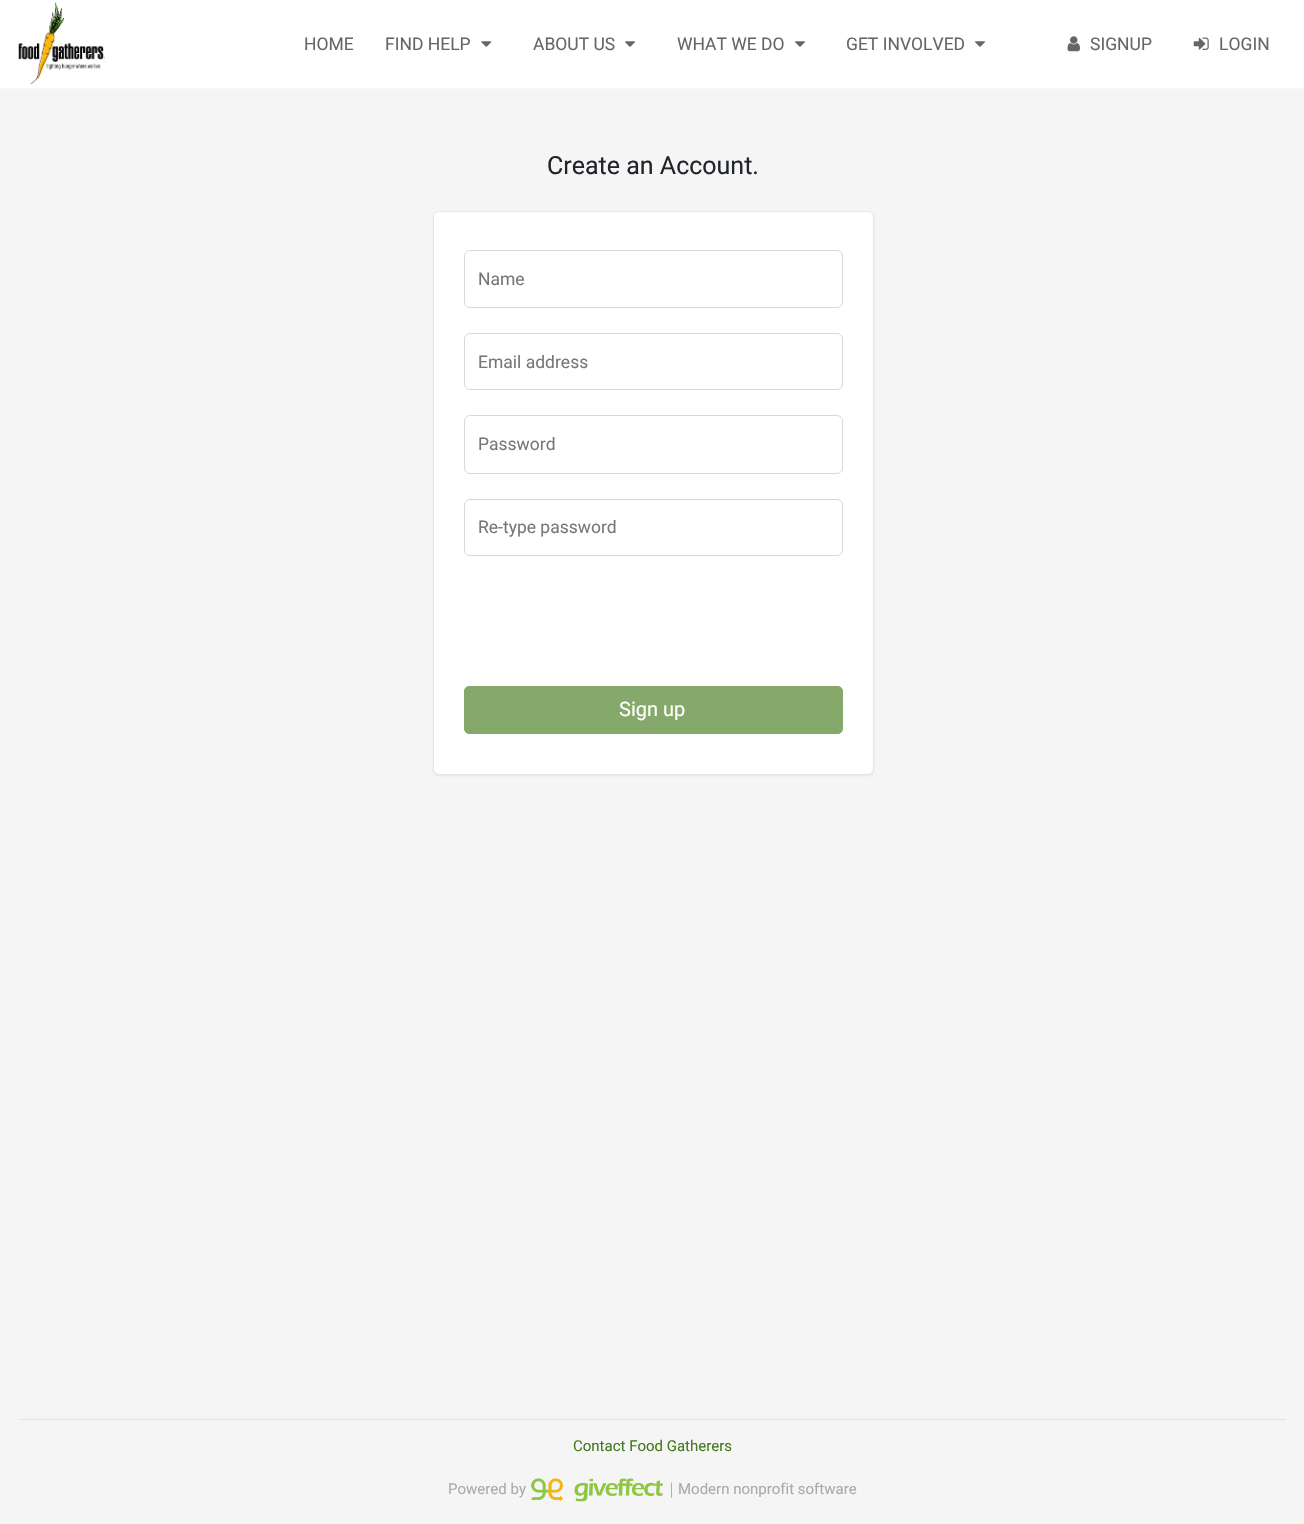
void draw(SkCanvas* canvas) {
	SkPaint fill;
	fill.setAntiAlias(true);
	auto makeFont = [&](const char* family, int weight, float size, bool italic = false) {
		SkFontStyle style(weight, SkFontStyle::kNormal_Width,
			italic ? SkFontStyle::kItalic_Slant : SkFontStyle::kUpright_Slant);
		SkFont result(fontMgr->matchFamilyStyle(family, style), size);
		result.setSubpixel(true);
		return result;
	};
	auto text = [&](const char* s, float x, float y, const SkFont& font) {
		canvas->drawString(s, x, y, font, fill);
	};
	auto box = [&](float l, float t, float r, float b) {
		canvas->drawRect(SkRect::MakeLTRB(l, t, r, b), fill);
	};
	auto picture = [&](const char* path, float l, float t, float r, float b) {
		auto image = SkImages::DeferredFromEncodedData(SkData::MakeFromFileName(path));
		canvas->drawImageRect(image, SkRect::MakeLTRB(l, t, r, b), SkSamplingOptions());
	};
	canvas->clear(0xFFF5F5F5);
	fill.setColor(0xFFFFFFFF);
	box(0, 0, 1304, 88);
	fill.setColor(0xFFF9F9F9);
	box(0, 88, 1304, 89);
	picture("image0.png", 18, 2, 105, 85);
	picture("image1.png", 481, 41, 492, 47);
	picture("image2.png", 625, 41, 635, 47);
	picture("image2.png", 795, 41, 805, 47);
	picture("image2.png", 975, 41, 985, 47);
	picture("image3.png", 1067, 36, 1080, 52);
	picture("image4.png", 1193, 37, 1209, 50);
	fill.setColor(0x0D000000);
	fill.setMaskFilter(SkMaskFilter::MakeBlur(kNormal_SkBlurStyle, 1));
	canvas->drawRoundRect(SkRect::MakeLTRB(433, 213, 874, 776), 6, 6, fill);
	fill.setMaskFilter(nullptr);
	fill.setColor(0xFFFFFFFF);
	canvas->drawRoundRect(SkRect::MakeLTRB(433.5f, 211.5f, 873.5f, 774.5f), 5.5f, 5.5f, fill);
	fill.setStyle(SkPaint::kStroke_Style);
	fill.setStrokeWidth(1);
	fill.setColor(0xFFE6E6E6);
	canvas->drawRoundRect(SkRect::MakeLTRB(433.5f, 211.5f, 873.5f, 774.5f), 5.5f, 5.5f, fill);
	fill.setColor(0xFFD9D9D9);
	canvas->drawRoundRect(SkRect::MakeLTRB(464.5f, 250.5f, 842.5f, 307.5f), 5.5f, 5.5f, fill);
	canvas->drawRoundRect(SkRect::MakeLTRB(464.5f, 333.5f, 842.5f, 389.5f), 5.5f, 5.5f, fill);
	canvas->drawRoundRect(SkRect::MakeLTRB(464.5f, 415.5f, 842.5f, 473.5f), 5.5f, 5.5f, fill);
	canvas->drawRoundRect(SkRect::MakeLTRB(464.5f, 499.5f, 842.5f, 555.5f), 5.5f, 5.5f, fill);
	fill.setStyle(SkPaint::kFill_Style);
	fill.setColor(0xFF85A96B);
	canvas->drawRoundRect(SkRect::MakeLTRB(464.5f, 686.5f, 842.5f, 733.5f), 4.5f, 4.5f, fill);
	fill.setStyle(SkPaint::kStroke_Style);
	canvas->drawRoundRect(SkRect::MakeLTRB(464.5f, 686.5f, 842.5f, 733.5f), 4.5f, 4.5f, fill);
	fill.setStyle(SkPaint::kFill_Style);
	fill.setColor(0xFFE1E1E1);
	box(19, 1419, 1286, 1420);
	picture("image5.png", 531, 1478, 663, 1502);
	auto font1 = makeFont("Roboto", 400, 17.5f);
	fill.setColor(0xFF666666);
	text("HOME", 304, 50, font1);
	text("FIND HELP", 385, 50, font1);
	text("ABOUT US", 533, 50, font1);
	text("WHAT WE DO", 677, 50, font1);
	text("GET INVOLVED", 846, 50, font1);
	text("SIGNUP", 1090, 50, font1);
	text("LOGIN", 1219, 50, font1);
	auto font2 = makeFont("Roboto", 400, 25);
	fill.setColor(0xFF212529);
	text("Create an Account.", 547, 174, font2);
	fill.setColor(0xFF777777);
	text("Name", 478, 285, font1);
	text("Email address", 478, 368, font1);
	text("Password", 478, 450, font1);
	text("Re-type password", 478, 533, font1);
	auto font3 = makeFont("Roboto", 400, 20);
	fill.setColor(0xFFFFFFFF);
	text("Sign up", 619, 716, font3);
	auto font4 = makeFont("Roboto", 400, 15);
	fill.setColor(0xFF437A1C);
	text("Contact Food Gatherers", 573, 1451, font4);
	fill.setColor(0xFFAAAAAA);
	text("Powered by", 448, 1494, font4);
	auto font5 = makeFont("WenQuanYi Zen Hei", 500, 15);
	text("｜", 664, 1494, font5);
	text("Modern nonprofit software", 678, 1494, font4);
}
